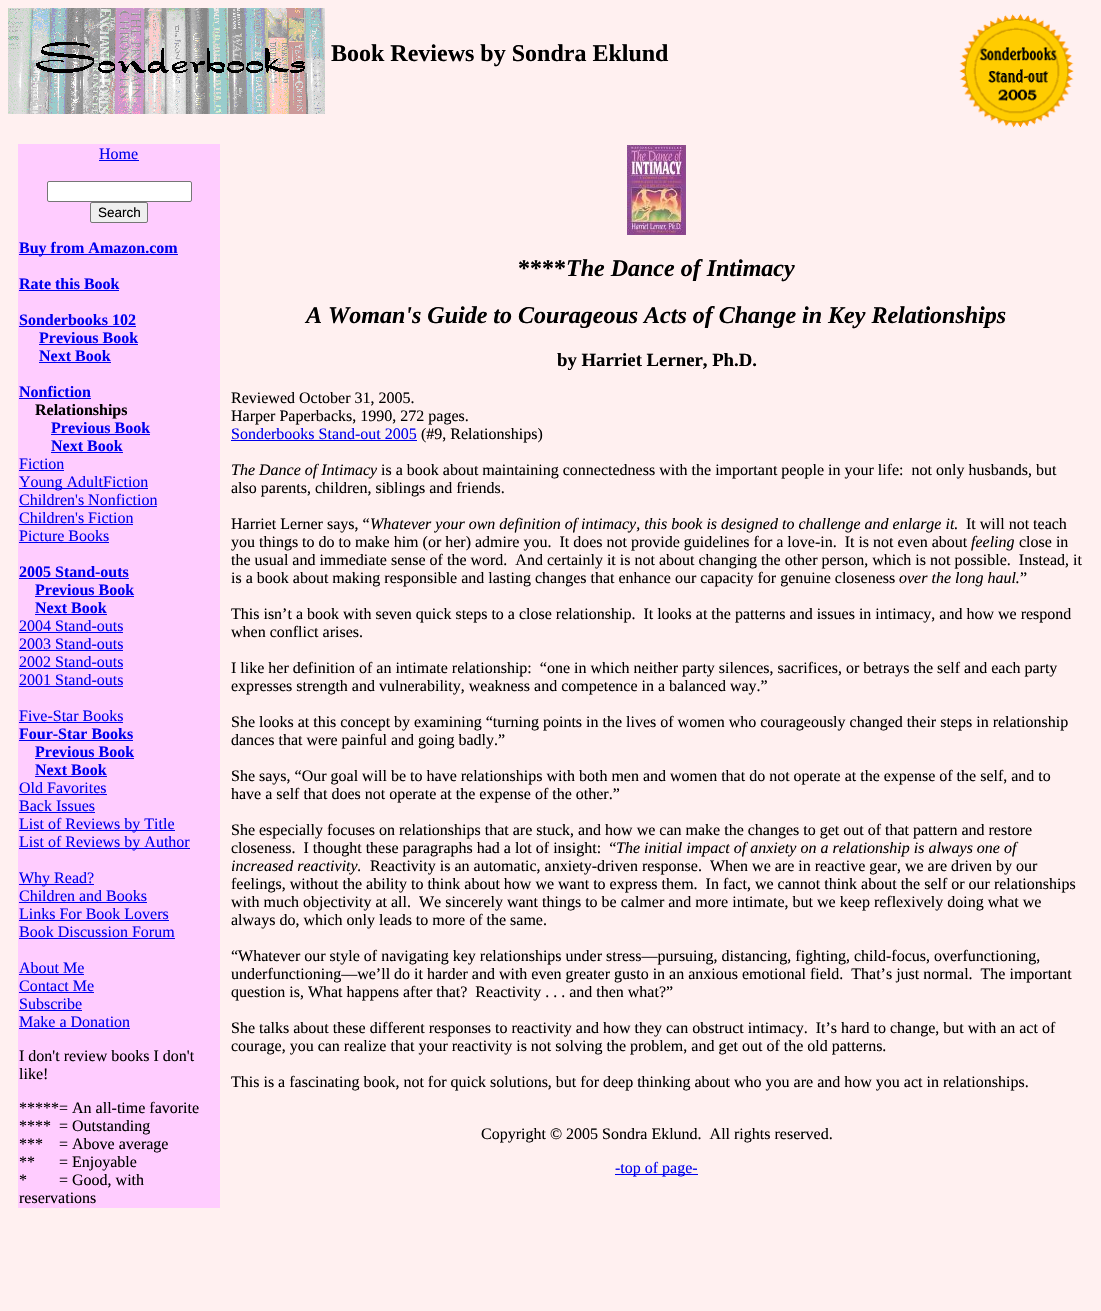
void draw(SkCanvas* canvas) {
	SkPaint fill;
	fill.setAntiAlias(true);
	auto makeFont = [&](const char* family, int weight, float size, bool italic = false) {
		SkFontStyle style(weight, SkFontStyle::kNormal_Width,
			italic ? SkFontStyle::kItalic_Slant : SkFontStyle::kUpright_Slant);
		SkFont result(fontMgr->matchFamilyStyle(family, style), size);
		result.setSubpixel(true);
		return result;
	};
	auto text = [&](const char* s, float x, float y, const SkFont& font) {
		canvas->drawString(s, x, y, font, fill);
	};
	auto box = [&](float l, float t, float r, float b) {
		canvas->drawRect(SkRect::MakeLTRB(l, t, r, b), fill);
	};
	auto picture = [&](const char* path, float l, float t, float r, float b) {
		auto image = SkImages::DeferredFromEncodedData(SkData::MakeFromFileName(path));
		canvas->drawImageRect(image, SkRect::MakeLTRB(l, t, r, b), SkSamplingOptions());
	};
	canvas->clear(0xFFFFF0F0);
	picture("image0.png", 8, 8, 325, 114);
	picture("image1.png", 959, 14, 1074, 128);
	fill.setColor(0xFFFFCCFF);
	box(18, 144, 220, 1208);
	fill.setColor(0xFF0000EE);
	box(99, 160, 139, 161);
	fill.setColor(0xFFFFFFFF);
	canvas->drawRoundRect(SkRect::MakeLTRB(47.5f, 181.5f, 191.5f, 201.5f), 1.5f, 1.5f, fill);
	fill.setStyle(SkPaint::kStroke_Style);
	fill.setStrokeWidth(1);
	fill.setColor(0xFF767676);
	canvas->drawRoundRect(SkRect::MakeLTRB(47.5f, 181.5f, 191.5f, 201.5f), 1.5f, 1.5f, fill);
	fill.setStyle(SkPaint::kFill_Style);
	fill.setColor(0xFFEFEFEF);
	canvas->drawRoundRect(SkRect::MakeLTRB(90.5f, 202.5f, 147.5f, 222.5f), 1.5f, 1.5f, fill);
	fill.setStyle(SkPaint::kStroke_Style);
	fill.setColor(0xFF767676);
	canvas->drawRoundRect(SkRect::MakeLTRB(90.5f, 202.5f, 147.5f, 222.5f), 1.5f, 1.5f, fill);
	fill.setStyle(SkPaint::kFill_Style);
	fill.setColor(0xFF0000EE);
	box(19, 254, 178, 255);
	box(19, 290, 119, 291);
	box(19, 326, 136, 327);
	box(39, 344, 138, 345);
	box(39, 362, 111, 363);
	box(19, 398, 91, 399);
	box(51, 434, 150, 435);
	box(51, 452, 123, 453);
	box(19, 470, 64, 471);
	box(19, 488, 148, 489);
	box(19, 506, 157, 507);
	box(19, 524, 133, 525);
	box(19, 542, 109, 543);
	box(19, 578, 129, 579);
	box(35, 596, 134, 597);
	box(35, 614, 107, 615);
	box(19, 632, 123, 633);
	box(19, 650, 123, 651);
	box(19, 668, 123, 669);
	box(19, 686, 123, 687);
	box(19, 722, 123, 723);
	box(19, 740, 133, 741);
	box(35, 758, 134, 759);
	box(35, 776, 107, 777);
	box(19, 794, 107, 795);
	box(19, 812, 95, 813);
	box(19, 830, 175, 831);
	box(19, 848, 190, 849);
	box(19, 884, 94, 885);
	box(19, 902, 147, 903);
	box(19, 920, 169, 921);
	box(19, 938, 175, 939);
	box(19, 974, 84, 975);
	box(19, 992, 94, 993);
	box(19, 1010, 82, 1011);
	box(19, 1028, 130, 1029);
	picture("image2.png", 627, 145, 686, 235);
	box(231, 440, 417, 441);
	box(615, 1174, 698, 1175);
	auto font1 = makeFont("Liberation Serif", 700, 24);
	fill.setColor(0xFF000000);
	text("Book Reviews by Sondra Eklund", 331, 61, font1);
	auto font2 = makeFont("Liberation Serif", 400, 16);
	fill.setColor(0xFF0000EE);
	text("Home", 99, 159, font2);
	auto font3 = makeFont("Liberation Sans", 400, 13.5f);
	fill.setColor(0xFF000000);
	text("Search", 98, 217, font3);
	auto font4 = makeFont("Liberation Serif", 700, 16);
	fill.setColor(0xFF0000EE);
	text("Buy from Amazon.com", 19, 253, font4);
	text("Rate this Book", 19, 289, font4);
	text("Sonderbooks 102", 19, 325, font4);
	text("Previous Book", 39, 343, font4);
	text("Next Book", 39, 361, font4);
	text("Nonfiction", 19, 397, font4);
	fill.setColor(0xFF000000);
	text("Relationships", 35, 415, font4);
	fill.setColor(0xFF0000EE);
	text("Previous Book", 51, 433, font4);
	text("Next Book", 51, 451, font4);
	text("Fiction", 19, 469, font2);
	text("Young AdultFiction", 19, 487, font2);
	text("Children's Nonfiction", 19, 505, font2);
	text("Children's Fiction", 19, 523, font2);
	text("Picture Books", 19, 541, font2);
	text("2005 Stand-outs", 19, 577, font4);
	text("Previous Book", 35, 595, font4);
	text("Next Book", 35, 613, font4);
	text("2004 Stand-outs", 19, 631, font2);
	text("2003 Stand-outs", 19, 649, font2);
	text("2002 Stand-outs", 19, 667, font2);
	text("2001 Stand-outs", 19, 685, font2);
	text("Five-Star Books", 19, 721, font2);
	text("Four-Star Books", 19, 739, font4);
	text("Previous Book", 35, 757, font4);
	text("Next Book", 35, 775, font4);
	text("Old Favorites", 19, 793, font2);
	text("Back Issues", 19, 811, font2);
	text("List of Reviews by Title", 19, 829, font2);
	text("List of Reviews by Author", 19, 847, font2);
	text("Why Read?", 19, 883, font2);
	text("Children and Books", 19, 901, font2);
	text("Links For Book Lovers", 19, 919, font2);
	text("Book Discussion Forum", 19, 937, font2);
	text("About Me", 19, 973, font2);
	text("Contact Me", 19, 991, font2);
	text("Subscribe", 19, 1009, font2);
	text("Make a Donation", 19, 1027, font2);
	fill.setColor(0xFF000000);
	text("I don't review books I don't", 19, 1061, font2);
	text("like!", 19, 1079, font2);
	text("*****= An all-time favorite", 19, 1113, font2);
	text("****  = Outstanding", 19, 1131, font2);
	text("***    = Above average", 19, 1149, font2);
	text("**      = Enjoyable", 19, 1167, font2);
	text("*        = Good, with", 19, 1185, font2);
	text("reservations", 19, 1203, font2);
	text("****", 518, 276, font1);
	auto font5 = makeFont("Liberation Serif", 700, 24, true);
	text("The Dance of Intimacy", 566, 276, font5);
	text("A Woman's Guide to Courageous Acts of Change in Key Relationships", 306, 323, font5);
	auto font6 = makeFont("Liberation Serif", 700, 18.75f);
	text("by Harriet Lerner, Ph.D.", 557, 366, font6);
	text("Reviewed October 31, 2005.", 231, 403, font2);
	text("Harper Paperbacks, 1990, 272 pages.", 231, 421, font2);
	fill.setColor(0xFF0000EE);
	text("Sonderbooks Stand-out 2005", 231, 439, font2);
	fill.setColor(0xFF000000);
	text("(#9, Relationships)", 421, 439, font2);
	auto font7 = makeFont("Liberation Serif", 400, 16, true);
	text("The Dance of Intimacy", 231, 475, font7);
	text("is a book about maintaining connectedness with the important people in your life:  not only husbands, but", 381, 475, font2);
	text("also parents, children, siblings and friends.", 231, 493, font2);
	text("Harriet Lerner says, “", 231, 529, font2);
	text("Whatever your own definition of intimacy, this book is designed to challenge and enlarge it.", 370, 529, font7);
	text("It will not teach", 966, 529, font2);
	text("you things to do to make him (or her) admire you.  It does not provide guidelines for a love-in.  It is not even about", 231, 547, font2);
	text("feeling", 971, 547, font7);
	text("close in", 1019, 547, font2);
	text("the usual and immediate sense of the word.  And certainly it is not about changing the other person, which is not possible.  Instead, it", 231, 565, font2);
	text("is a book about making responsible and lasting changes that enhance our capacity for genuine closeness", 231, 583, font2);
	text("over the long haul.", 899, 583, font7);
	text("”", 1020, 583, font2);
	text("This isn’t a book with seven quick steps to a close relationship.  It looks at the patterns and issues in intimacy, and how we respond", 231, 619, font2);
	text("when conflict arises.", 231, 637, font2);
	text("I like her definition of an intimate relationship:  “one in which neither party silences, sacrifices, or betrays the self and each party", 231, 673, font2);
	text("expresses strength and vulnerability, weakness and competence in a balanced way.”", 231, 691, font2);
	text("She looks at this concept by examining “turning points in the lives of women who courageously changed their steps in relationship", 231, 727, font2);
	text("dances that were painful and going badly.”", 231, 745, font2);
	text("She says, “Our goal will be to have relationships with both men and women that do not operate at the expense of the self, and to", 231, 781, font2);
	text("have a self that does not operate at the expense of the other.”", 231, 799, font2);
	text("She especially focuses on relationships that are stuck, and how we can make the changes to get out of that pattern and restore", 231, 835, font2);
	text("closeness.  I thought these paragraphs had a lot of insight:  “", 231, 853, font2);
	text("The initial impact of anxiety on a relationship is always one of", 616, 853, font7);
	text("increased reactivity.", 231, 871, font7);
	text("Reactivity is an automatic, anxiety-driven response.  When we are in reactive gear, we are driven by our", 370, 871, font2);
	text("feelings, without the ability to think about how we want to express them.  In fact, we cannot think about the self or our relationships", 231, 889, font2);
	text("with much objectivity at all.  We sincerely want things to be calmer and more intimate, but we keep reflexively doing what we", 231, 907, font2);
	text("always do, which only leads to more of the same.", 231, 925, font2);
	text("“Whatever our style of navigating key relationships under stress—pursuing, distancing, fighting, child-focus, overfunctioning,", 231, 961, font2);
	text("underfunctioning—we’ll do it harder and with even greater gusto in an anxious emotional field.  That’s just normal.  The important", 231, 979, font2);
	text("question is, What happens after that?  Reactivity . . . and then what?”", 231, 997, font2);
	text("She talks about these different responses to reactivity and how they can obstruct intimacy.  It’s hard to change, but with an act of", 231, 1033, font2);
	text("courage, you can realize that your reactivity is not solving the problem, and get out of the old patterns.", 231, 1051, font2);
	text("This is a fascinating book, not for quick solutions, but for deep thinking about who you are and how you act in relationships.", 231, 1087, font2);
	text("Copyright © 2005 Sondra Eklund.  All rights reserved.", 481, 1139, font2);
	fill.setColor(0xFF0000EE);
	text("-top of page-", 615, 1173, font2);
}
